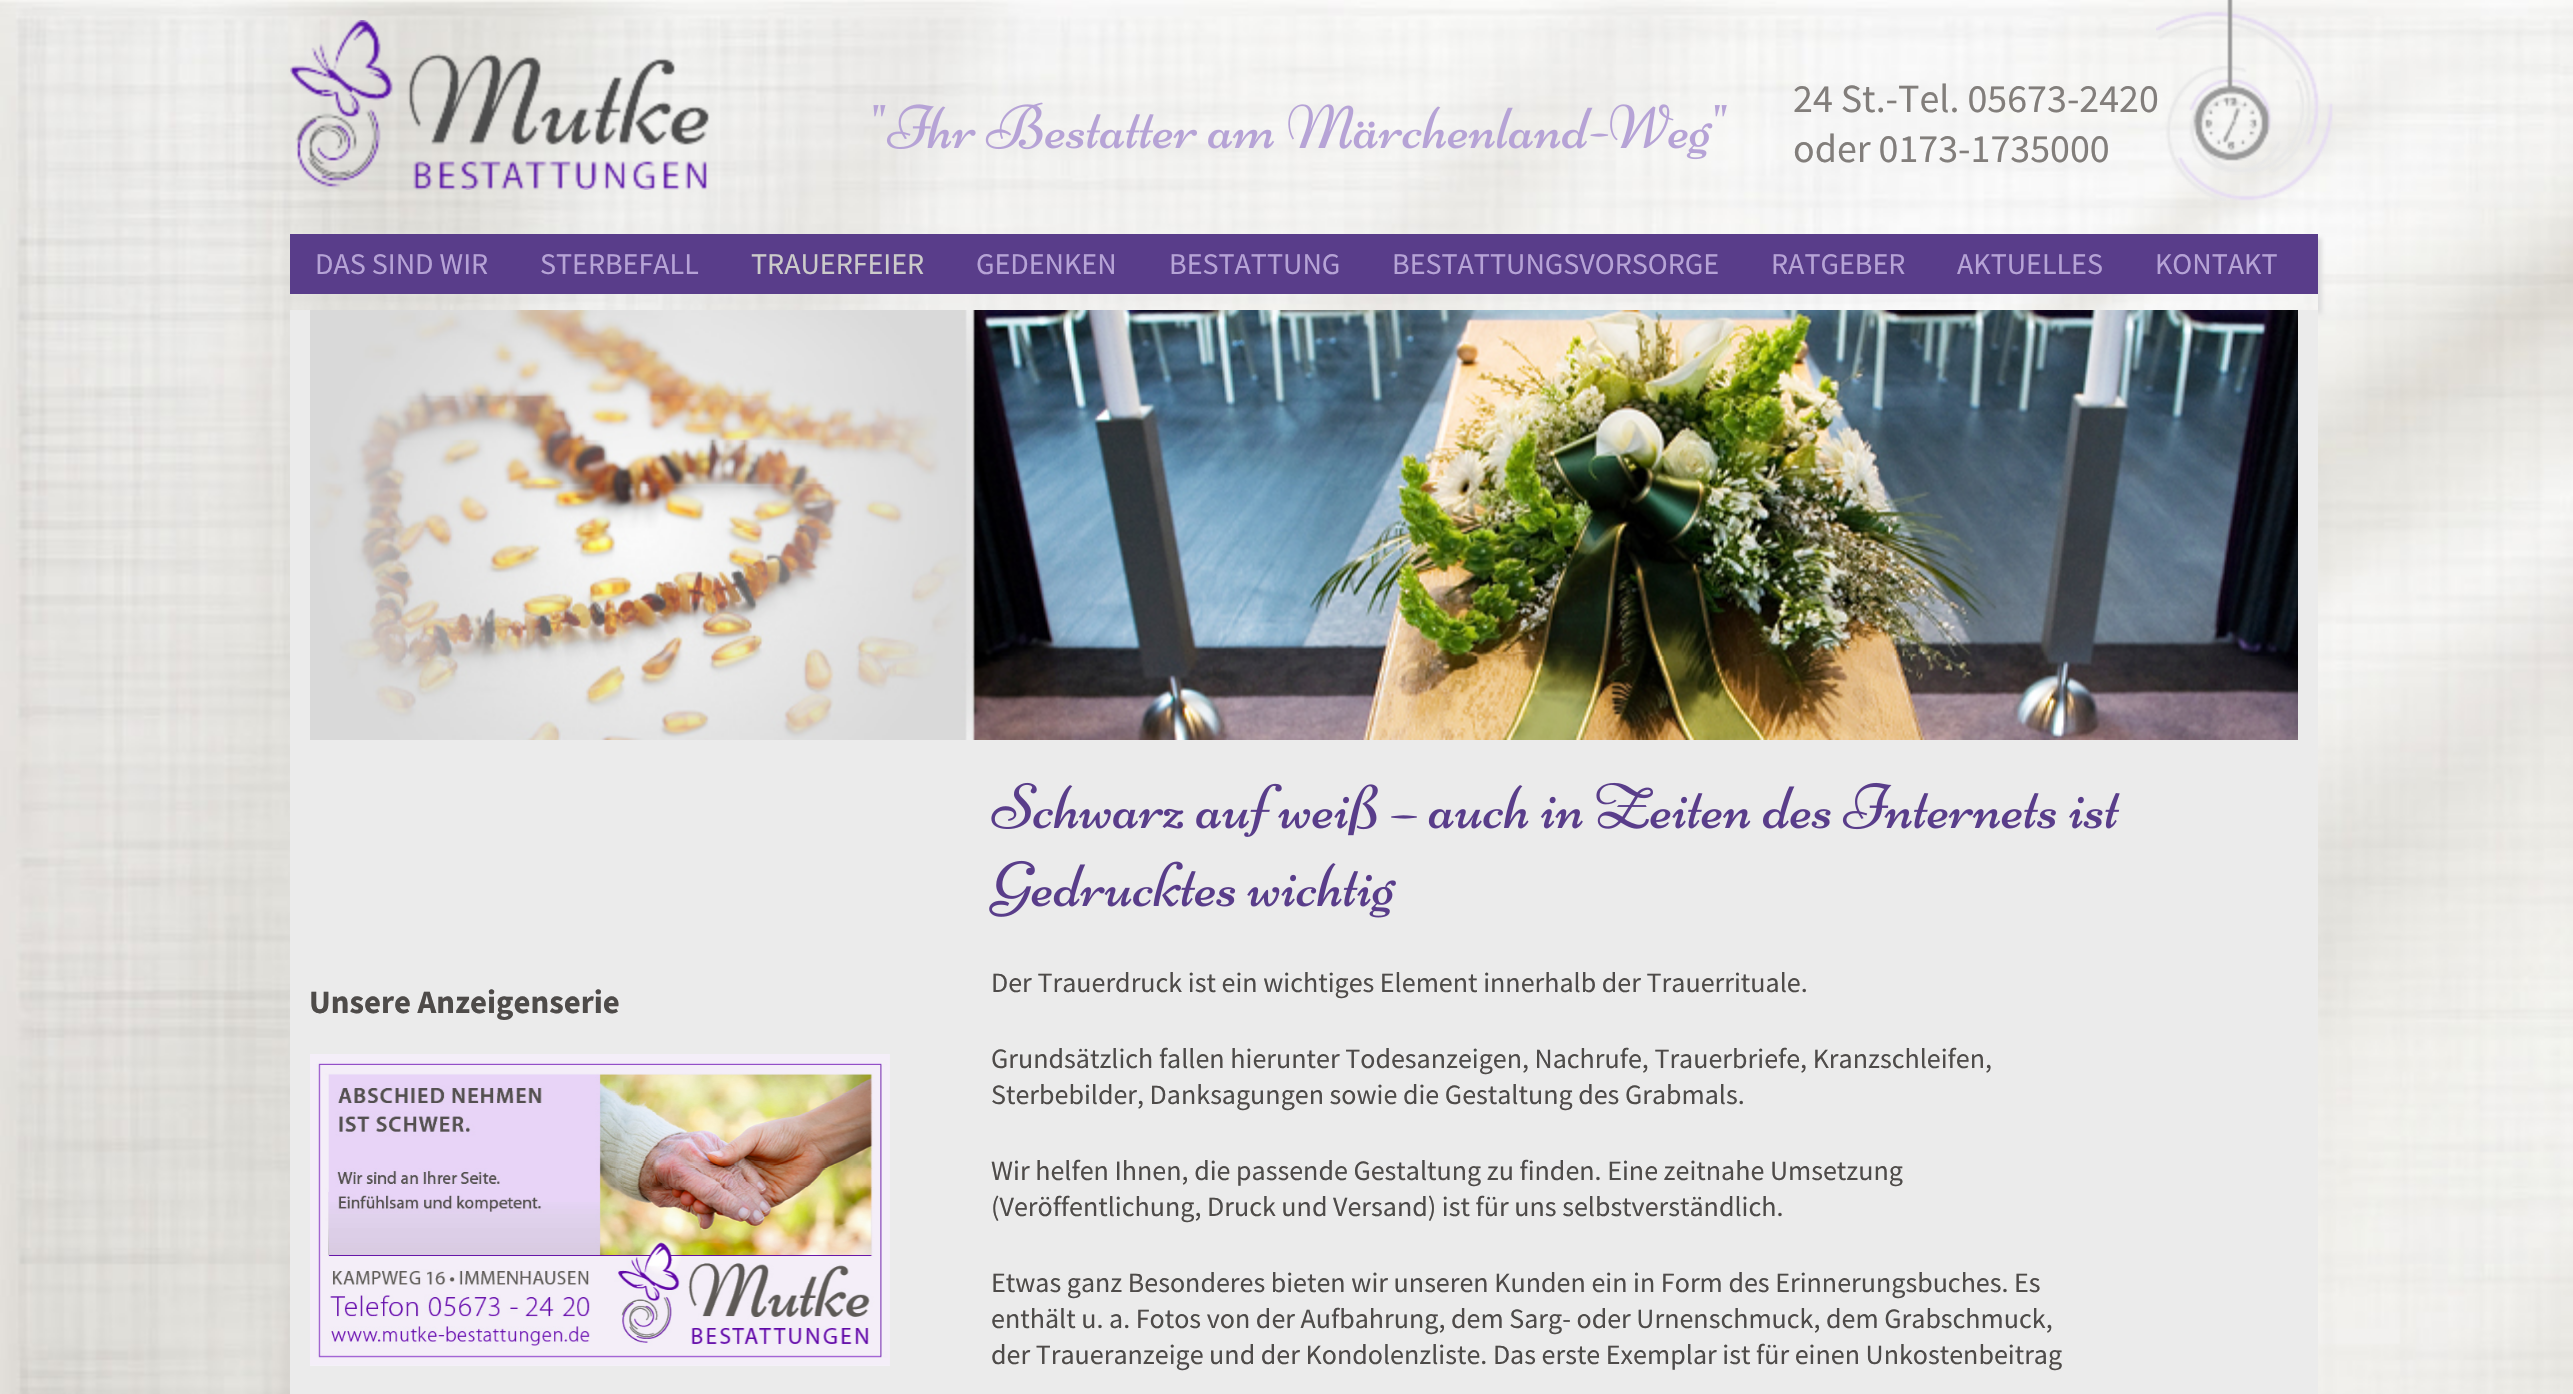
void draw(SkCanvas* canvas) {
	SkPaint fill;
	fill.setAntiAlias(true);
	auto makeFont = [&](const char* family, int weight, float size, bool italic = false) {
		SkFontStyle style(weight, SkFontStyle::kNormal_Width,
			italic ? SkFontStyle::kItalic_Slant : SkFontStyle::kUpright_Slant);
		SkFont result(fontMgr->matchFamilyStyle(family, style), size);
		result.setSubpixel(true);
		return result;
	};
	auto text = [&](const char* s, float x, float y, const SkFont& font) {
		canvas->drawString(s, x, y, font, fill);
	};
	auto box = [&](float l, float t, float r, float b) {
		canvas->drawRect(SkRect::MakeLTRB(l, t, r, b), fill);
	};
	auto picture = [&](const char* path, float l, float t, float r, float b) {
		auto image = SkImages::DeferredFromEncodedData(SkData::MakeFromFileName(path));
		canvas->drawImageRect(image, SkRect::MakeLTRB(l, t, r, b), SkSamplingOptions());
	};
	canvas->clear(0xFFFFFFFF);
	picture("image0.png", 0, 0, 2573, 1394);
	picture("image1.png", 290, 20, 710, 190);
	picture("image2.png", 873, 102, 1727, 160);
	fill.setColor(0xFF593D8A);
	box(290, 234, 2318, 294);
	canvas->save();
	canvas->clipRect(SkRect::MakeLTRB(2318, 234, 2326, 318));
	fill.setColor(0xFFDFDFDF);
	fill.setMaskFilter(SkMaskFilter::MakeBlur(kNormal_SkBlurStyle, 2));
	canvas->drawRect(SkRect::MakeLTRB(294, 238, 2322, 314), fill);
	fill.setMaskFilter(nullptr);
	canvas->restore();
	fill.setColor(0xFFEBEBEB);
	box(290, 310, 2318, 1394);
	picture("image4.png", 310, 310, 2298, 740);
	picture("image5.png", 310, 1054, 890, 1366);
	picture("image6.png", 991, 782, 2120, 837);
	picture("image7.png", 989, 860, 1396, 918);
	auto font1 = makeFont("Source Sans Pro", 400, 40);
	fill.setColor(0xFF827E7B);
	text("24 St.-Tel. 05673-2420", 1793, 112, font1);
	text("oder 0173-1735000", 1793, 162, font1);
	picture("image3.png", 2156, 0, 2333, 201);
	auto font2 = makeFont("Source Sans Pro", 400, 30);
	fill.setColor(0xFFB6A3D6);
	text("DAS SIND WIR", 315, 274, font2);
	text("STERBEFALL", 540, 274, font2);
	fill.setColor(0xFFCCCBCA);
	text("TRAUERFEIER", 751, 274, font2);
	fill.setColor(0xFFB6A3D6);
	text("GEDENKEN", 976, 274, font2);
	text("BESTATTUNG", 1169, 274, font2);
	text("BESTATTUNGSVORSORGE", 1392, 274, font2);
	text("RATGEBER", 1771, 274, font2);
	text("AKTUELLES", 1957, 274, font2);
	text("KONTAKT", 2155, 274, font2);
	auto font3 = makeFont("Source Sans Pro", 700, 32.75f);
	fill.setColor(0xFF4E4B49);
	text("Unsere Anzeigenserie", 309, 1013, font3);
	auto font4 = makeFont("Source Sans Pro", 400, 28);
	text("Der Trauerdruck ist ein wichtiges Element innerhalb der Trauerrituale.", 991, 992, font4);
	text("Grundsätzlich fallen hierunter Todesanzeigen, Nachrufe, Trauerbriefe, Kranzschleifen,", 991, 1068, font4);
	text("Sterbebilder, Danksagungen sowie die Gestaltung des Grabmals.", 991, 1104, font4);
	text("Wir helfen Ihnen, die passende Gestaltung zu finden. Eine zeitnahe Umsetzung", 991, 1180, font4);
	text("(Veröffentlichung, Druck und Versand) ist für uns selbstverständlich.", 991, 1216, font4);
	text("Etwas ganz Besonderes bieten wir unseren Kunden ein in Form des Erinnerungsbuches. Es", 991, 1292, font4);
	text("enthält u. a. Fotos von der Aufbahrung, dem Sarg- oder Urnenschmuck, dem Grabschmuck,", 991, 1328, font4);
	text("der Traueranzeige und der Kondolenzliste. Das erste Exemplar ist für einen Unkostenbeitrag", 991, 1364, font4);
}
